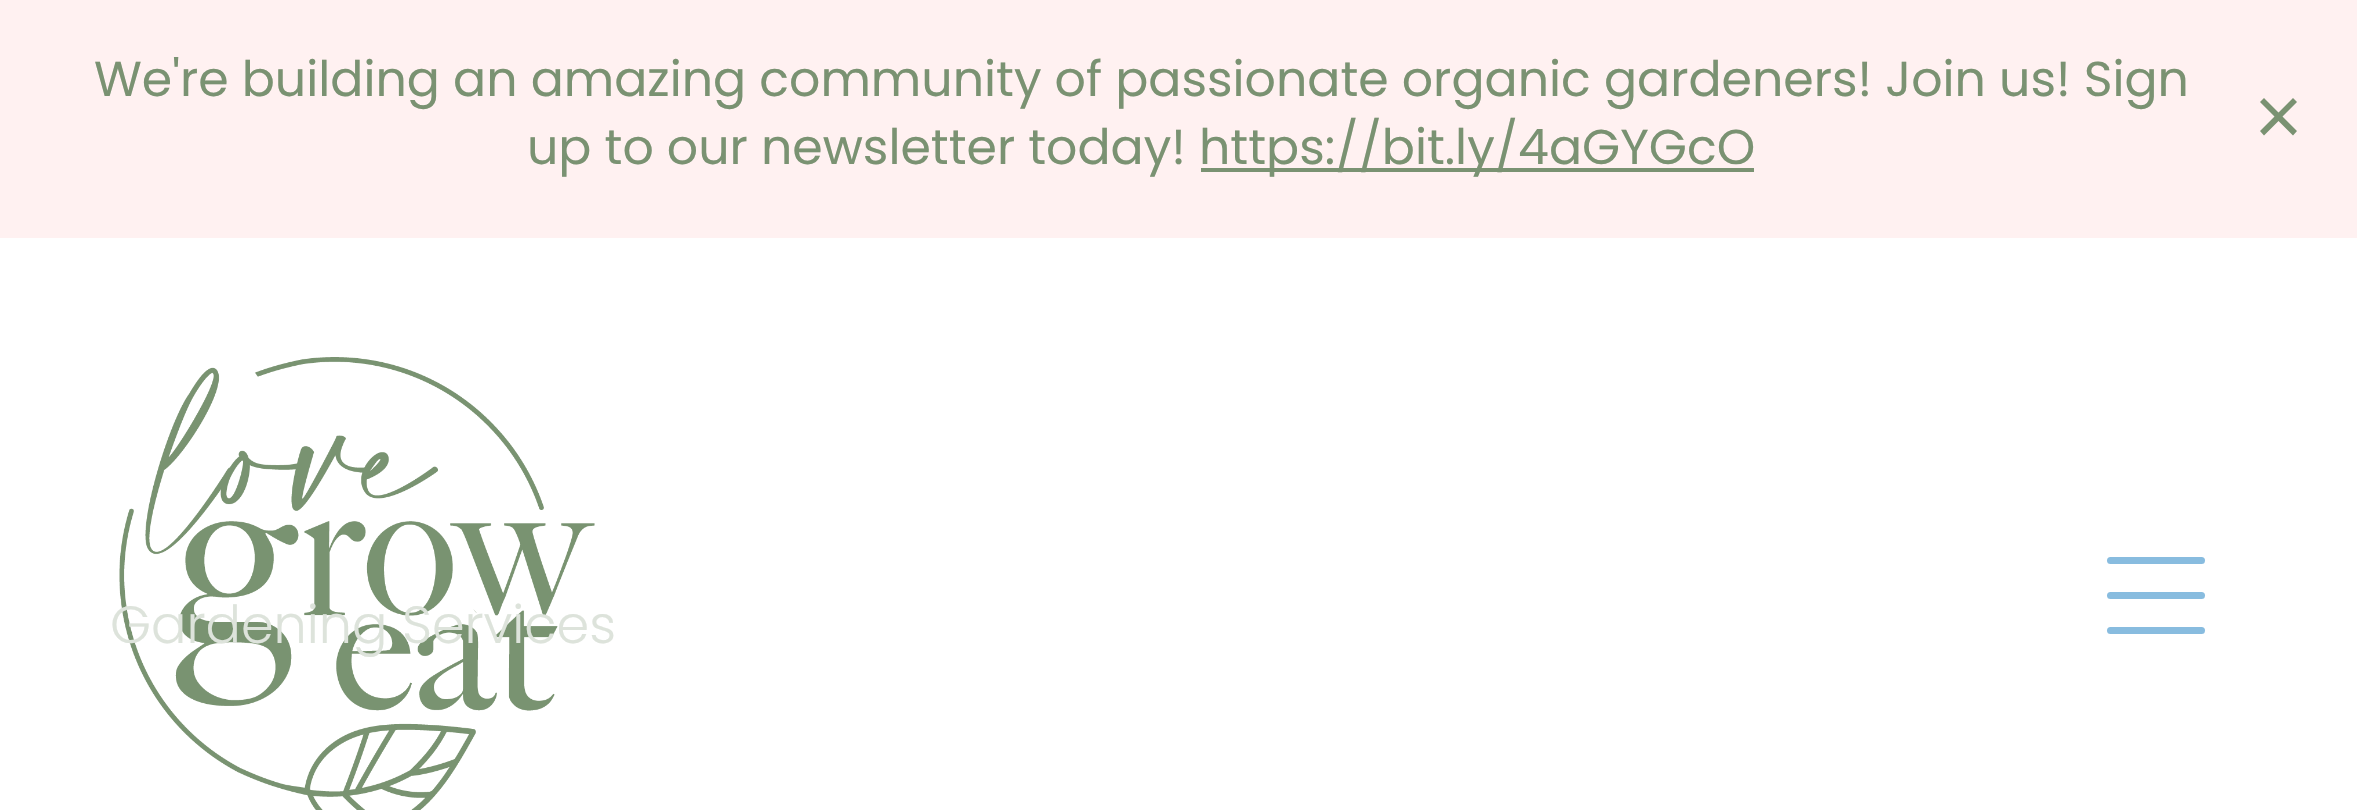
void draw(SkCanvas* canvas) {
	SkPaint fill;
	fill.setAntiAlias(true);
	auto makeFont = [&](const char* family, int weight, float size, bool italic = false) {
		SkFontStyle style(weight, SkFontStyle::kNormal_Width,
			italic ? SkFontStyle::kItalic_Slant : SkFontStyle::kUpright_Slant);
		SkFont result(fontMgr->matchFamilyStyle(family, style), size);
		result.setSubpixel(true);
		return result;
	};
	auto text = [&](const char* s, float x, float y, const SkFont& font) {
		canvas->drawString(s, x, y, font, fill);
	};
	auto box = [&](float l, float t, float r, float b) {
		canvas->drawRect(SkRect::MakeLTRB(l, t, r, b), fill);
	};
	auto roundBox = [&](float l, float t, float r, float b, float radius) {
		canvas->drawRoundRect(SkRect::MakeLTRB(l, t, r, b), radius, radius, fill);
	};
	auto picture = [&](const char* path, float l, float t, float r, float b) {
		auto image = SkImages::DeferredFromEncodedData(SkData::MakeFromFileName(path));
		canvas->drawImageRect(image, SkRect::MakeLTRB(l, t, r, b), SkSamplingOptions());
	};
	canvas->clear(0xFFFFFFFF);
	fill.setColor(0xFFFFF1F1);
	box(0, 0, 2357, 238);
	fill.setColor(0xFF7A9272);
	box(1201, 168, 1754, 172);
	canvas->drawPath(SkPathBuilder().moveTo(2264, 98).lineTo(2260, 102).lineTo(2274.5f, 116.5f).lineTo(2260, 131).lineTo(2264, 135.5f).lineTo(2278.5f, 121).lineTo(2293, 135.5f).lineTo(2297, 131).lineTo(2282.5f, 116.5f).lineTo(2297, 102).lineTo(2293, 98).lineTo(2278.5f, 112.5f).close().detach(), fill);
	picture("image0.png", 119, 357, 595, 810);
	fill.setColor(0xFF88BCDF);
	roundBox(2107, 592, 2205, 599, 3.5f);
	roundBox(2107, 557, 2205, 564, 3.5f);
	roundBox(2107, 627, 2205, 634, 3.5f);
	auto font1 = makeFont("Poppins", 400, 49);
	fill.setColor(0xFF7A9272);
	text("We're building an amazing community of passionate organic gardeners! Join us! Sign", 94, 96, font1);
	text("up to our newsletter today!", 527, 164, font1);
	text("https://bit.ly/4aGYGcO", 1199, 164, font1);
	auto font2 = makeFont("Poppins", 300, 52.5f);
	fill.setColor(0xFFDDE3DB);
	text("Gardening Services", 110, 643, font2);
}
